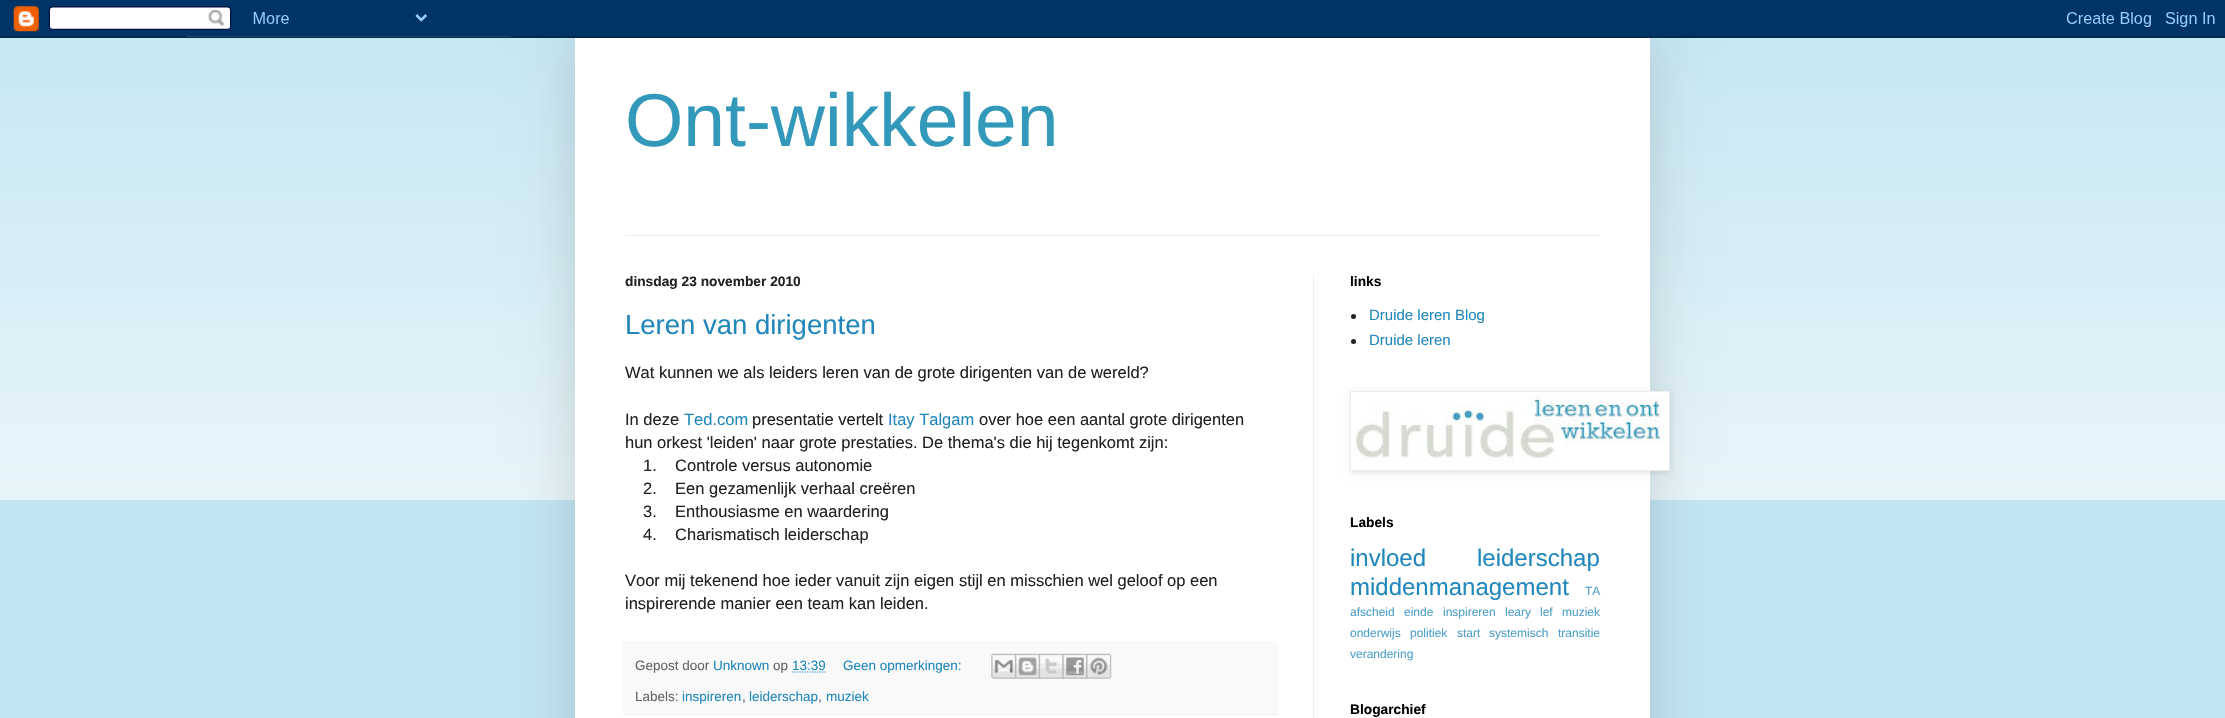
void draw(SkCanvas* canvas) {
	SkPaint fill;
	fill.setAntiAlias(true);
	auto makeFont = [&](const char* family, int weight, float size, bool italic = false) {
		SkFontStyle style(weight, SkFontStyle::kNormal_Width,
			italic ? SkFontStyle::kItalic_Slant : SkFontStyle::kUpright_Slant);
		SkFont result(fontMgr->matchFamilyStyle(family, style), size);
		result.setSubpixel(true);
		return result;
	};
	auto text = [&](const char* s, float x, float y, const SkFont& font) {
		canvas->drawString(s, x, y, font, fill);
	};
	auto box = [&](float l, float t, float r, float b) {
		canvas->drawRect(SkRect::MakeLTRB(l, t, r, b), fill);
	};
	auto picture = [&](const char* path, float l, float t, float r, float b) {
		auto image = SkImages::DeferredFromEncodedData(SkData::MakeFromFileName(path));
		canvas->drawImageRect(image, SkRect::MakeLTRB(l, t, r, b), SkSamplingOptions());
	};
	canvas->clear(0xFFC2E5F2);
	picture("image1.png", 0, 36, 2225, 500);
	fill.setColor(0x26000000);
	fill.setMaskFilter(SkMaskFilter::MakeBlur(kNormal_SkBlurStyle, 25));
	canvas->drawRect(SkRect::MakeLTRB(575, 38, 1650, 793), fill);
	fill.setMaskFilter(nullptr);
	picture("image0.png", 0, 0, 2225, 38);
	fill.setColor(0xFFFFFFFF);
	box(575, 38, 1650, 718);
	fill.setColor(0xFFEEEEEE);
	box(625, 235, 1600, 236);
	box(1313, 274, 1314, 718);
	fill.setColor(0xFFF9F9F9);
	box(623, 641, 1278, 714);
	fill.setColor(0xFFEEEEEE);
	box(623, 714, 1278, 715);
	fill.setStyle(SkPaint::kStroke_Style);
	fill.setStrokeWidth(1.2f);
	fill.setColor(0xFF2288BB);
	fill.setPathEffect(SkDashPathEffect::Make({{1.25f, 1.25f}}, 0));
	canvas->drawPath(SkPathBuilder().moveTo(792, 672).lineTo(825.5f, 672).detach(), fill);
	fill.setPathEffect(nullptr);
	picture("image2.png", 991, 653, 1017, 679);
	picture("image3.png", 1015, 653, 1040, 679);
	picture("image4.png", 1038, 653, 1064, 679);
	picture("image5.png", 1062, 653, 1088, 679);
	picture("image6.png", 1086, 653, 1112, 679);
	fill.setStyle(SkPaint::kFill_Style);
	fill.setColor(0xFF222222);
	canvas->drawCircle(1353.5f, 316.5f, 2.5f, fill);
	canvas->drawCircle(1353.5f, 341.5f, 2.5f, fill);
	fill.setColor(0x1A000000);
	fill.setMaskFilter(SkMaskFilter::MakeBlur(kNormal_SkBlurStyle, 3));
	canvas->drawRect(SkRect::MakeLTRB(1351, 393, 1671, 473), fill);
	fill.setMaskFilter(nullptr);
	fill.setColor(0xFFFFFFFF);
	canvas->drawRect(SkRect::MakeLTRB(1350.5f, 391.5f, 1669.5f, 470.5f), fill);
	fill.setStyle(SkPaint::kStroke_Style);
	fill.setStrokeWidth(1);
	fill.setColor(0xFFEEEEEE);
	canvas->drawRect(SkRect::MakeLTRB(1350.5f, 391.5f, 1669.5f, 470.5f), fill);
	picture("image7.png", 1354, 395, 1664, 465);
	auto font1 = makeFont("Liberation Sans", 400, 75);
	fill.setStyle(SkPaint::kFill_Style);
	fill.setColor(0xFF3399BB);
	text("Ont-wikkelen", 625, 146, font1);
	auto font2 = makeFont("Liberation Sans", 700, 13.75f);
	fill.setColor(0xFF222222);
	text("dinsdag 23 november 2010", 625, 286, font2);
	auto font3 = makeFont("Liberation Sans", 400, 27.5f);
	fill.setColor(0xFF2288BB);
	text("Leren van dirigenten", 625, 334, font3);
	auto font4 = makeFont("Liberation Sans", 400, 16.5f);
	fill.setColor(0xFF222222);
	text("Wat kunnen we als leiders leren van de grote dirigenten van de wereld?", 625, 378, font4);
	text("In deze", 625, 425, font4);
	fill.setColor(0xFF2288BB);
	text("Ted.com", 684, 425, font4);
	fill.setColor(0xFF222222);
	text("presentatie vertelt", 752, 425, font4);
	fill.setColor(0xFF2288BB);
	text("Itay Talgam", 888, 425, font4);
	fill.setColor(0xFF222222);
	text("over hoe een aantal grote dirigenten", 979, 425, font4);
	text("hun orkest 'leiden' naar grote prestaties. De thema's die hij tegenkomt zijn:", 625, 448, font4);
	text("1.    Controle versus autonomie", 643, 471, font4);
	text("2.    Een gezamenlijk verhaal creëren", 643, 494, font4);
	text("3.    Enthousiasme en waardering", 643, 517, font4);
	text("4.    Charismatisch leiderschap", 643, 540, font4);
	text("Voor mij tekenend hoe ieder vanuit zijn eigen stijl en misschien wel geloof op een", 625, 586, font4);
	text("inspirerende manier een team kan leiden.", 625, 609, font4);
	auto font5 = makeFont("Liberation Sans", 400, 13.5f);
	fill.setColor(0xFF666666);
	text("Gepost door", 635, 670, font5);
	fill.setColor(0xFF2288BB);
	text("Unknown", 713, 670, font5);
	fill.setColor(0xFF666666);
	text("op", 773, 670, font5);
	fill.setColor(0xFF2288BB);
	text("13:39", 792, 670, font5);
	text("Geen opmerkingen:", 843, 670, font5);
	fill.setColor(0xFF666666);
	text("Labels:", 635, 701, font5);
	fill.setColor(0xFF2288BB);
	text("inspireren", 682, 701, font5);
	fill.setColor(0xFF666666);
	text(",", 742, 701, font5);
	fill.setColor(0xFF2288BB);
	text("leiderschap", 749, 701, font5);
	fill.setColor(0xFF666666);
	text(",", 818, 701, font5);
	fill.setColor(0xFF2288BB);
	text("muziek", 826, 701, font5);
	fill.setColor(0xFF000000);
	text("links", 1350, 286, font2);
	auto font6 = makeFont("Liberation Sans", 400, 15);
	fill.setColor(0xFF2288BB);
	text("Druide leren Blog", 1369, 320, font6);
	text("Druide leren", 1369, 345, font6);
	fill.setColor(0xFF000000);
	text("Labels", 1350, 527, font2);
	auto font7 = makeFont("Liberation Sans", 400, 24);
	fill.setColor(0xFF2288BB);
	text("invloed", 1350, 566, font7);
	text("leiderschap", 1477, 566, font7);
	text("middenmanagement", 1350, 595, font7);
	auto font8 = makeFont("Liberation Sans", 400, 12);
	fill.setColor(0xFF4EA0C9);
	text("TA", 1585, 595, font8);
	text("afscheid", 1350, 616, font8);
	text("einde", 1404, 616, font8);
	text("inspireren", 1443, 616, font8);
	text("leary", 1505, 616, font8);
	text("lef", 1540, 616, font8);
	text("muziek", 1562, 616, font8);
	text("onderwijs", 1350, 637, font8);
	text("politiek", 1410, 637, font8);
	text("start", 1457, 637, font8);
	text("systemisch", 1489, 637, font8);
	text("transitie", 1558, 637, font8);
	text("verandering", 1350, 658, font8);
	fill.setColor(0xFF000000);
	text("Blogarchief", 1350, 714, font2);
}
